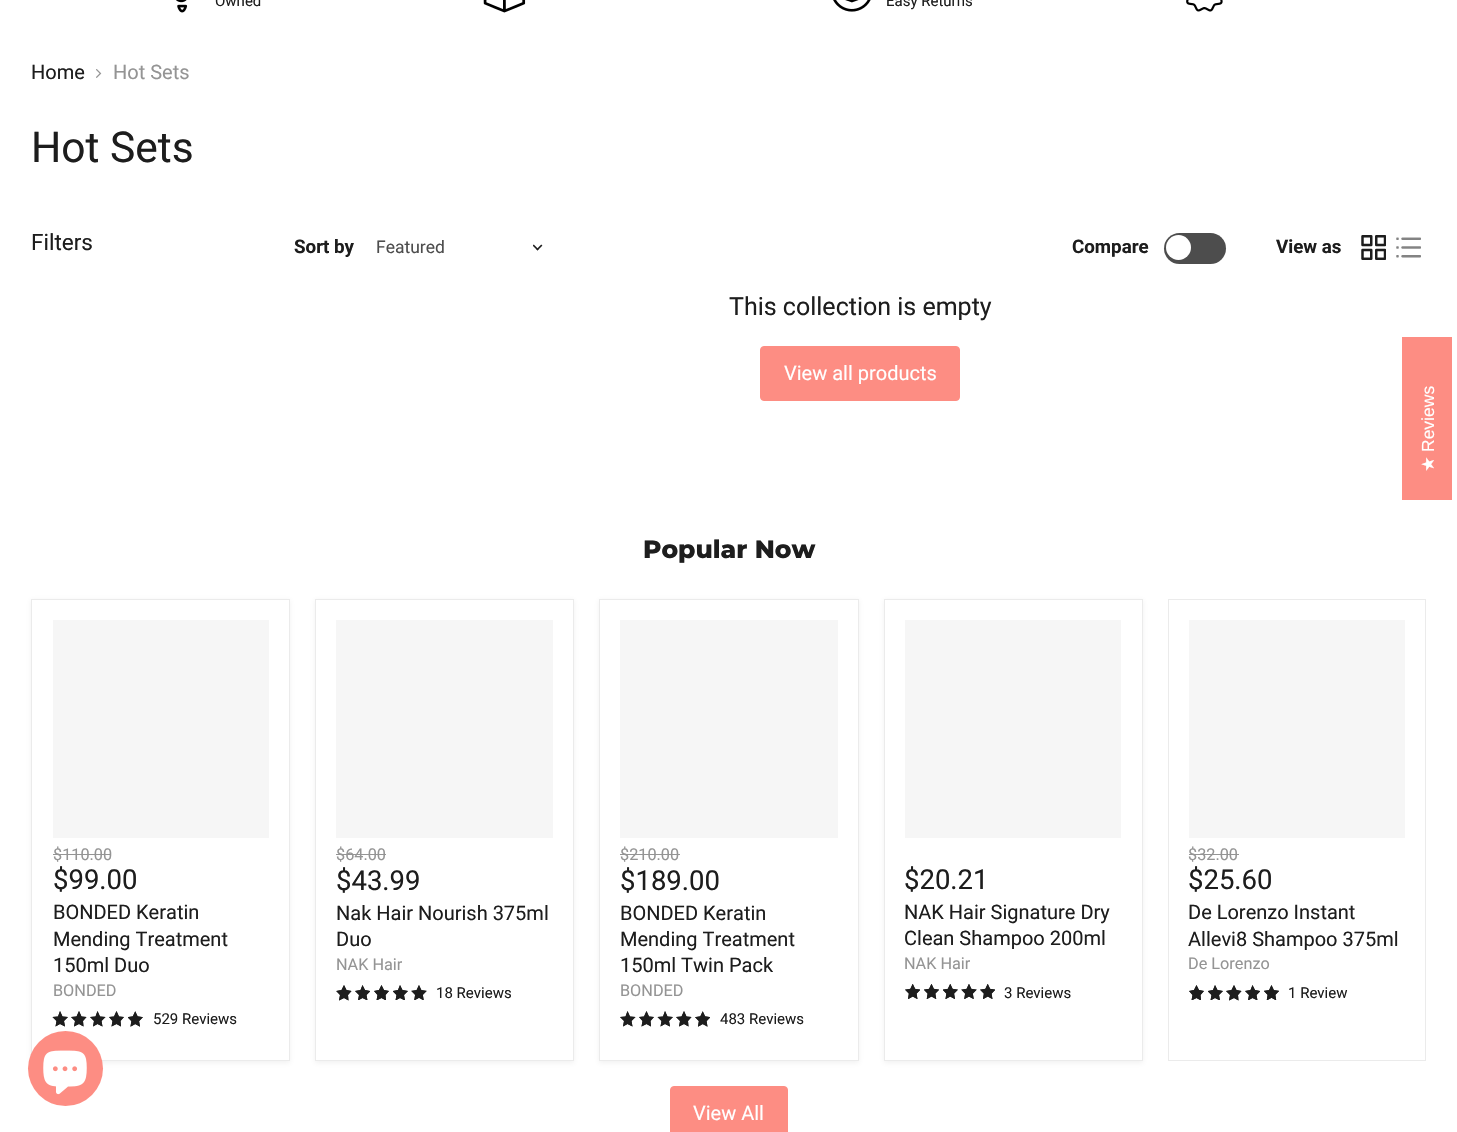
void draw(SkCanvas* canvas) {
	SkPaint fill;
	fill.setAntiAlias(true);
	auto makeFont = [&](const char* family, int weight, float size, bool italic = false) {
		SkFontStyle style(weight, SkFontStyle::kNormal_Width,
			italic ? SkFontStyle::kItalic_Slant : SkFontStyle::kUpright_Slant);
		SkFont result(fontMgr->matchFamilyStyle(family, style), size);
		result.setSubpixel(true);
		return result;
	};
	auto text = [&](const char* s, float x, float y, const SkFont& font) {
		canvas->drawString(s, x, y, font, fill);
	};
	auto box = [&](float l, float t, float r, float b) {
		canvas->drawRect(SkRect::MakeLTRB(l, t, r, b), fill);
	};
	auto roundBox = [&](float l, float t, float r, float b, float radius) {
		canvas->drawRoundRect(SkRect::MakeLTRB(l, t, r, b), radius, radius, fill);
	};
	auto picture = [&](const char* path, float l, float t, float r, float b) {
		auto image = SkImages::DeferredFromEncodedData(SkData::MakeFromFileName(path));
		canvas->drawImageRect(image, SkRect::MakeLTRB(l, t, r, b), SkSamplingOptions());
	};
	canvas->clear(0xFFFFFFFF);
	picture("image0.png", 176, 0, 188, 13);
	picture("image1.png", 483, 0, 526, 13);
	picture("image2.png", 833, 0, 871, 12);
	picture("image3.png", 1186, 0, 1223, 12);
	picture("image4.png", 96, 69, 102, 78);
	picture("image5.png", 533, 244, 543, 251);
	fill.setColor(0xFF4D4D4D);
	roundBox(1164, 233, 1226, 264, 15.5f);
	fill.setColor(0xFFFFFFFF);
	canvas->drawCircle(1178.5f, 247.5f, 12.5f, fill);
	picture("image6.png", 1361, 235, 1386, 260);
	picture("image7.png", 1396, 237, 1421, 258);
	fill.setColor(0xFFFD8D83);
	canvas->drawRoundRect(SkRect::MakeLTRB(760.5f, 346.5f, 959.5f, 400.5f), 3.5f, 3.5f, fill);
	fill.setStyle(SkPaint::kStroke_Style);
	fill.setStrokeWidth(1);
	canvas->drawRoundRect(SkRect::MakeLTRB(760.5f, 346.5f, 959.5f, 400.5f), 3.5f, 3.5f, fill);
	fill.setStyle(SkPaint::kFill_Style);
	fill.setColor(0x1C808080);
	fill.setMaskFilter(SkMaskFilter::MakeBlur(kNormal_SkBlurStyle, 2.5f));
	canvas->drawRect(SkRect::MakeLTRB(31, 600, 290, 1063), fill);
	fill.setMaskFilter(nullptr);
	fill.setColor(0xFFFFFFFF);
	canvas->drawRect(SkRect::MakeLTRB(31.5f, 599.5f, 289.5f, 1060.5f), fill);
	fill.setStyle(SkPaint::kStroke_Style);
	fill.setColor(0xFFEBEBEB);
	canvas->drawRect(SkRect::MakeLTRB(31.5f, 599.5f, 289.5f, 1060.5f), fill);
	fill.setStyle(SkPaint::kFill_Style);
	fill.setColor(0xFFF6F6F6);
	box(53, 620, 269, 838);
	fill.setColor(0xFF949494);
	box(53, 854, 111, 855);
	fill.setColor(0xFF1D1D1D);
	canvas->drawPath(SkPathBuilder().moveTo(60, 1011).lineTo(58, 1016.5f).lineTo(52.5f, 1017).lineTo(56.5f, 1021).lineTo(55.5f, 1026.5f).lineTo(60, 1024).lineTo(65, 1026.5f).lineTo(64, 1021).lineTo(68, 1017).lineTo(62.5f, 1016.5f).close().detach(), fill);
	canvas->save();
	canvas->clipPath(SkPathBuilder().moveTo(60, 1011).lineTo(62.5f, 1016.5f).lineTo(68, 1017).lineTo(64, 1021).lineTo(65, 1026.5f).lineTo(60, 1024).lineTo(55.5f, 1026.5f).lineTo(56.5f, 1021).lineTo(52.5f, 1017).lineTo(58, 1016.5f).close().detach(), true);
	fill.setStyle(SkPaint::kStroke_Style);
	fill.setStrokeWidth(2.2f);
	fill.setStrokeCap(SkPaint::kRound_Cap);
	fill.setStrokeJoin(SkPaint::kRound_Join);
	canvas->drawPath(SkPathBuilder().moveTo(60, 1011).lineTo(62.5f, 1016.5f).lineTo(68, 1017).lineTo(64, 1021).lineTo(65, 1026.5f).lineTo(60, 1024).lineTo(55.5f, 1026.5f).lineTo(56.5f, 1021).lineTo(52.5f, 1017).lineTo(58, 1016.5f).close().detach(), fill);
	canvas->restore();
	fill.setStyle(SkPaint::kFill_Style);
	canvas->drawPath(SkPathBuilder().moveTo(79, 1011).lineTo(76.5f, 1016.5f).lineTo(71, 1017).lineTo(75, 1021).lineTo(74, 1026.5f).lineTo(79, 1024).lineTo(83.5f, 1026.5f).lineTo(83, 1021).lineTo(86.5f, 1017).lineTo(81.5f, 1016.5f).close().detach(), fill);
	canvas->save();
	canvas->clipPath(SkPathBuilder().moveTo(79, 1011).lineTo(81.5f, 1016.5f).lineTo(86.5f, 1017).lineTo(83, 1021).lineTo(83.5f, 1026.5f).lineTo(79, 1024).lineTo(74, 1026.5f).lineTo(75, 1021).lineTo(71, 1017).lineTo(76.5f, 1016.5f).close().detach(), true);
	fill.setStyle(SkPaint::kStroke_Style);
	canvas->drawPath(SkPathBuilder().moveTo(79, 1011).lineTo(81.5f, 1016.5f).lineTo(86.5f, 1017).lineTo(83, 1021).lineTo(83.5f, 1026.5f).lineTo(79, 1024).lineTo(74, 1026.5f).lineTo(75, 1021).lineTo(71, 1017).lineTo(76.5f, 1016.5f).close().detach(), fill);
	canvas->restore();
	fill.setStyle(SkPaint::kFill_Style);
	canvas->drawPath(SkPathBuilder().moveTo(97.5f, 1011).lineTo(95.5f, 1016.5f).lineTo(90, 1017).lineTo(94, 1021).lineTo(93, 1026.5f).lineTo(97.5f, 1024).lineTo(102.5f, 1026.5f).lineTo(101.5f, 1021).lineTo(105.5f, 1017).lineTo(100, 1016.5f).close().detach(), fill);
	canvas->save();
	canvas->clipPath(SkPathBuilder().moveTo(97.5f, 1011).lineTo(100, 1016.5f).lineTo(105.5f, 1017).lineTo(101.5f, 1021).lineTo(102.5f, 1026.5f).lineTo(97.5f, 1024).lineTo(93, 1026.5f).lineTo(94, 1021).lineTo(90, 1017).lineTo(95.5f, 1016.5f).close().detach(), true);
	fill.setStyle(SkPaint::kStroke_Style);
	canvas->drawPath(SkPathBuilder().moveTo(97.5f, 1011).lineTo(100, 1016.5f).lineTo(105.5f, 1017).lineTo(101.5f, 1021).lineTo(102.5f, 1026.5f).lineTo(97.5f, 1024).lineTo(93, 1026.5f).lineTo(94, 1021).lineTo(90, 1017).lineTo(95.5f, 1016.5f).close().detach(), fill);
	canvas->restore();
	fill.setStyle(SkPaint::kFill_Style);
	canvas->drawPath(SkPathBuilder().moveTo(116.5f, 1011).lineTo(114, 1016.5f).lineTo(109, 1017).lineTo(112.5f, 1021).lineTo(111.5f, 1026.5f).lineTo(116.5f, 1024).lineTo(121, 1026.5f).lineTo(120.5f, 1021).lineTo(124, 1017).lineTo(119, 1016.5f).close().detach(), fill);
	canvas->save();
	canvas->clipPath(SkPathBuilder().moveTo(116.5f, 1011).lineTo(119, 1016.5f).lineTo(124, 1017).lineTo(120.5f, 1021).lineTo(121, 1026.5f).lineTo(116.5f, 1024).lineTo(111.5f, 1026.5f).lineTo(112.5f, 1021).lineTo(109, 1017).lineTo(114, 1016.5f).close().detach(), true);
	fill.setStyle(SkPaint::kStroke_Style);
	canvas->drawPath(SkPathBuilder().moveTo(116.5f, 1011).lineTo(119, 1016.5f).lineTo(124, 1017).lineTo(120.5f, 1021).lineTo(121, 1026.5f).lineTo(116.5f, 1024).lineTo(111.5f, 1026.5f).lineTo(112.5f, 1021).lineTo(109, 1017).lineTo(114, 1016.5f).close().detach(), fill);
	canvas->restore();
	picture("image8.png", 128, 1011, 143, 1027);
	fill.setStyle(SkPaint::kFill_Style);
	fill.setColor(0x1C808080);
	fill.setMaskFilter(SkMaskFilter::MakeBlur(kNormal_SkBlurStyle, 2.5f));
	canvas->drawRect(SkRect::MakeLTRB(315, 600, 574, 1063), fill);
	fill.setMaskFilter(nullptr);
	fill.setColor(0xFFFFFFFF);
	canvas->drawRect(SkRect::MakeLTRB(315.5f, 599.5f, 573.5f, 1060.5f), fill);
	fill.setStyle(SkPaint::kStroke_Style);
	fill.setStrokeWidth(1);
	fill.setStrokeCap(SkPaint::kButt_Cap);
	fill.setStrokeJoin(SkPaint::kMiter_Join);
	fill.setColor(0xFFEBEBEB);
	canvas->drawRect(SkRect::MakeLTRB(315.5f, 599.5f, 573.5f, 1060.5f), fill);
	fill.setStyle(SkPaint::kFill_Style);
	fill.setColor(0xFFF6F6F6);
	box(336, 620, 553, 838);
	fill.setColor(0xFF949494);
	box(336, 854, 386, 855);
	fill.setColor(0xFF1D1D1D);
	canvas->drawPath(SkPathBuilder().moveTo(344, 985).lineTo(341.5f, 990).lineTo(336, 991).lineTo(340, 995).lineTo(339, 1000.5f).lineTo(344, 998).lineTo(348.5f, 1000.5f).lineTo(348, 995).lineTo(351.5f, 991).lineTo(346.5f, 990).close().detach(), fill);
	canvas->save();
	canvas->clipPath(SkPathBuilder().moveTo(344, 985).lineTo(346.5f, 990).lineTo(351.5f, 991).lineTo(348, 995).lineTo(348.5f, 1000.5f).lineTo(344, 998).lineTo(339, 1000.5f).lineTo(340, 995).lineTo(336.5f, 991).lineTo(341.5f, 990).close().detach(), true);
	fill.setStyle(SkPaint::kStroke_Style);
	fill.setStrokeWidth(2.2f);
	fill.setStrokeCap(SkPaint::kRound_Cap);
	fill.setStrokeJoin(SkPaint::kRound_Join);
	canvas->drawPath(SkPathBuilder().moveTo(344, 985).lineTo(346.5f, 990).lineTo(351.5f, 991).lineTo(348, 995).lineTo(348.5f, 1000.5f).lineTo(344, 998).lineTo(339, 1000.5f).lineTo(340, 995).lineTo(336.5f, 991).lineTo(341.5f, 990).close().detach(), fill);
	canvas->restore();
	canvas->save();
	canvas->clipRect(SkRect::MakeLTRB(355, 985, 370, 1000));
	fill.setStyle(SkPaint::kFill_Style);
	canvas->drawPath(SkPathBuilder().moveTo(362.5f, 985).lineTo(360.5f, 990).lineTo(355, 991).lineTo(359, 995).lineTo(358, 1000.5f).lineTo(362.5f, 998).lineTo(367.5f, 1000.5f).lineTo(366.5f, 995).lineTo(370.5f, 991).lineTo(365, 990).close().detach(), fill);
	canvas->restore();
	canvas->save();
	canvas->clipRect(SkRect::MakeLTRB(355, 985, 370, 1000));
	canvas->clipPath(SkPathBuilder().moveTo(362.5f, 985).lineTo(365, 990).lineTo(370.5f, 991).lineTo(366.5f, 995).lineTo(367.5f, 1000.5f).lineTo(362.5f, 998).lineTo(358, 1000.5f).lineTo(359, 995).lineTo(355, 991).lineTo(360.5f, 990).close().detach(), true);
	fill.setStyle(SkPaint::kStroke_Style);
	canvas->drawPath(SkPathBuilder().moveTo(362.5f, 985).lineTo(365, 990).lineTo(370.5f, 991).lineTo(366.5f, 995).lineTo(367.5f, 1000.5f).lineTo(362.5f, 998).lineTo(358, 1000.5f).lineTo(359, 995).lineTo(355, 991).lineTo(360.5f, 990).close().detach(), fill);
	canvas->restore();
	canvas->save();
	canvas->clipRect(SkRect::MakeLTRB(374, 985, 389, 1000));
	fill.setStyle(SkPaint::kFill_Style);
	canvas->drawPath(SkPathBuilder().moveTo(381.5f, 985).lineTo(379, 990).lineTo(374, 991).lineTo(377.5f, 995).lineTo(376.5f, 1000.5f).lineTo(381.5f, 998).lineTo(386, 1000.5f).lineTo(385.5f, 995).lineTo(389, 991).lineTo(384, 990).close().detach(), fill);
	canvas->restore();
	canvas->save();
	canvas->clipRect(SkRect::MakeLTRB(374, 985, 389, 1000));
	canvas->clipPath(SkPathBuilder().moveTo(381.5f, 985).lineTo(384, 990).lineTo(389, 991).lineTo(385.5f, 995).lineTo(386, 1000.5f).lineTo(381.5f, 998).lineTo(376.5f, 1000.5f).lineTo(377.5f, 995).lineTo(374, 991).lineTo(379, 990).close().detach(), true);
	fill.setStyle(SkPaint::kStroke_Style);
	canvas->drawPath(SkPathBuilder().moveTo(381.5f, 985).lineTo(384, 990).lineTo(389, 991).lineTo(385.5f, 995).lineTo(386, 1000.5f).lineTo(381.5f, 998).lineTo(376.5f, 1000.5f).lineTo(377.5f, 995).lineTo(374, 991).lineTo(379, 990).close().detach(), fill);
	canvas->restore();
	canvas->save();
	canvas->clipRect(SkRect::MakeLTRB(393, 985, 408, 1000));
	fill.setStyle(SkPaint::kFill_Style);
	canvas->drawPath(SkPathBuilder().moveTo(400, 985).lineTo(398, 990).lineTo(392.5f, 991).lineTo(396.5f, 995).lineTo(395.5f, 1000.5f).lineTo(400, 998).lineTo(405, 1000.5f).lineTo(404, 995).lineTo(408, 991).lineTo(402.5f, 990).close().detach(), fill);
	canvas->restore();
	canvas->save();
	canvas->clipRect(SkRect::MakeLTRB(393, 985, 408, 1000));
	canvas->clipPath(SkPathBuilder().moveTo(400, 985).lineTo(402.5f, 990).lineTo(408, 991).lineTo(404, 995).lineTo(405, 1000.5f).lineTo(400, 998).lineTo(395.5f, 1000.5f).lineTo(396.5f, 995).lineTo(392.5f, 991).lineTo(398, 990).close().detach(), true);
	fill.setStyle(SkPaint::kStroke_Style);
	canvas->drawPath(SkPathBuilder().moveTo(400, 985).lineTo(402.5f, 990).lineTo(408, 991).lineTo(404, 995).lineTo(405, 1000.5f).lineTo(400, 998).lineTo(395.5f, 1000.5f).lineTo(396.5f, 995).lineTo(392.5f, 991).lineTo(398, 990).close().detach(), fill);
	canvas->restore();
	picture("image9.png", 411, 985, 427, 1000);
	fill.setStyle(SkPaint::kFill_Style);
	fill.setColor(0x1C808080);
	fill.setMaskFilter(SkMaskFilter::MakeBlur(kNormal_SkBlurStyle, 2.5f));
	canvas->drawRect(SkRect::MakeLTRB(599, 600, 859, 1063), fill);
	fill.setMaskFilter(nullptr);
	fill.setColor(0xFFFFFFFF);
	canvas->drawRect(SkRect::MakeLTRB(599.5f, 599.5f, 858.5f, 1060.5f), fill);
	fill.setStyle(SkPaint::kStroke_Style);
	fill.setStrokeWidth(1);
	fill.setStrokeCap(SkPaint::kButt_Cap);
	fill.setStrokeJoin(SkPaint::kMiter_Join);
	fill.setColor(0xFFEBEBEB);
	canvas->drawRect(SkRect::MakeLTRB(599.5f, 599.5f, 858.5f, 1060.5f), fill);
	fill.setStyle(SkPaint::kFill_Style);
	fill.setColor(0xFFF6F6F6);
	box(620, 620, 838, 838);
	fill.setColor(0xFF949494);
	box(620, 854, 680, 855);
	fill.setColor(0xFF1D1D1D);
	canvas->drawPath(SkPathBuilder().moveTo(627.5f, 1011).lineTo(625.5f, 1016.5f).lineTo(620, 1017).lineTo(624, 1021).lineTo(623, 1026.5f).lineTo(627.5f, 1024).lineTo(632.5f, 1026.5f).lineTo(631.5f, 1021).lineTo(635.5f, 1017).lineTo(630, 1016.5f).close().detach(), fill);
	canvas->save();
	canvas->clipPath(SkPathBuilder().moveTo(627.5f, 1011).lineTo(630, 1016.5f).lineTo(635.5f, 1017).lineTo(631.5f, 1021).lineTo(632.5f, 1026.5f).lineTo(627.5f, 1024).lineTo(623, 1026.5f).lineTo(624, 1021).lineTo(620, 1017).lineTo(625.5f, 1016.5f).close().detach(), true);
	fill.setStyle(SkPaint::kStroke_Style);
	fill.setStrokeWidth(2.2f);
	fill.setStrokeCap(SkPaint::kRound_Cap);
	fill.setStrokeJoin(SkPaint::kRound_Join);
	canvas->drawPath(SkPathBuilder().moveTo(627.5f, 1011).lineTo(630, 1016.5f).lineTo(635.5f, 1017).lineTo(631.5f, 1021).lineTo(632.5f, 1026.5f).lineTo(627.5f, 1024).lineTo(623, 1026.5f).lineTo(624, 1021).lineTo(620, 1017).lineTo(625.5f, 1016.5f).close().detach(), fill);
	canvas->restore();
	fill.setStyle(SkPaint::kFill_Style);
	canvas->drawPath(SkPathBuilder().moveTo(646.5f, 1011).lineTo(644, 1016.5f).lineTo(639, 1017).lineTo(642.5f, 1021).lineTo(641.5f, 1026.5f).lineTo(646.5f, 1024).lineTo(651, 1026.5f).lineTo(650.5f, 1021).lineTo(654, 1017).lineTo(649, 1016.5f).close().detach(), fill);
	canvas->save();
	canvas->clipPath(SkPathBuilder().moveTo(646.5f, 1011).lineTo(649, 1016.5f).lineTo(654, 1017).lineTo(650.5f, 1021).lineTo(651, 1026.5f).lineTo(646.5f, 1024).lineTo(641.5f, 1026.5f).lineTo(642.5f, 1021).lineTo(639, 1017).lineTo(644, 1016.5f).close().detach(), true);
	fill.setStyle(SkPaint::kStroke_Style);
	canvas->drawPath(SkPathBuilder().moveTo(646.5f, 1011).lineTo(649, 1016.5f).lineTo(654, 1017).lineTo(650.5f, 1021).lineTo(651, 1026.5f).lineTo(646.5f, 1024).lineTo(641.5f, 1026.5f).lineTo(642.5f, 1021).lineTo(639, 1017).lineTo(644, 1016.5f).close().detach(), fill);
	canvas->restore();
	fill.setStyle(SkPaint::kFill_Style);
	canvas->drawPath(SkPathBuilder().moveTo(665, 1011).lineTo(663, 1016.5f).lineTo(657.5f, 1017).lineTo(661.5f, 1021).lineTo(660.5f, 1026.5f).lineTo(665, 1024).lineTo(670, 1026.5f).lineTo(669, 1021).lineTo(673, 1017).lineTo(667.5f, 1016.5f).close().detach(), fill);
	canvas->save();
	canvas->clipPath(SkPathBuilder().moveTo(665, 1011).lineTo(667.5f, 1016.5f).lineTo(673, 1017).lineTo(669, 1021).lineTo(670, 1026.5f).lineTo(665, 1024).lineTo(660.5f, 1026.5f).lineTo(661.5f, 1021).lineTo(657.5f, 1017).lineTo(663, 1016.5f).close().detach(), true);
	fill.setStyle(SkPaint::kStroke_Style);
	canvas->drawPath(SkPathBuilder().moveTo(665, 1011).lineTo(667.5f, 1016.5f).lineTo(673, 1017).lineTo(669, 1021).lineTo(670, 1026.5f).lineTo(665, 1024).lineTo(660.5f, 1026.5f).lineTo(661.5f, 1021).lineTo(657.5f, 1017).lineTo(663, 1016.5f).close().detach(), fill);
	canvas->restore();
	fill.setStyle(SkPaint::kFill_Style);
	canvas->drawPath(SkPathBuilder().moveTo(684, 1011).lineTo(681.5f, 1016.5f).lineTo(676, 1017).lineTo(680, 1021).lineTo(679, 1026.5f).lineTo(684, 1024).lineTo(688.5f, 1026.5f).lineTo(688, 1021).lineTo(691.5f, 1017).lineTo(686.5f, 1016.5f).close().detach(), fill);
	canvas->save();
	canvas->clipPath(SkPathBuilder().moveTo(684, 1011).lineTo(686.5f, 1016.5f).lineTo(691.5f, 1017).lineTo(688, 1021).lineTo(688.5f, 1026.5f).lineTo(684, 1024).lineTo(679, 1026.5f).lineTo(680, 1021).lineTo(676, 1017).lineTo(681.5f, 1016.5f).close().detach(), true);
	fill.setStyle(SkPaint::kStroke_Style);
	canvas->drawPath(SkPathBuilder().moveTo(684, 1011).lineTo(686.5f, 1016.5f).lineTo(691.5f, 1017).lineTo(688, 1021).lineTo(688.5f, 1026.5f).lineTo(684, 1024).lineTo(679, 1026.5f).lineTo(680, 1021).lineTo(676, 1017).lineTo(681.5f, 1016.5f).close().detach(), fill);
	canvas->restore();
	picture("image10.png", 695, 1011, 710, 1027);
	fill.setStyle(SkPaint::kFill_Style);
	fill.setColor(0x1C808080);
	fill.setMaskFilter(SkMaskFilter::MakeBlur(kNormal_SkBlurStyle, 2.5f));
	canvas->drawRect(SkRect::MakeLTRB(884, 600, 1143, 1063), fill);
	fill.setMaskFilter(nullptr);
	fill.setColor(0xFFFFFFFF);
	canvas->drawRect(SkRect::MakeLTRB(884.5f, 599.5f, 1142.5f, 1060.5f), fill);
	fill.setStyle(SkPaint::kStroke_Style);
	fill.setStrokeWidth(1);
	fill.setStrokeCap(SkPaint::kButt_Cap);
	fill.setStrokeJoin(SkPaint::kMiter_Join);
	fill.setColor(0xFFEBEBEB);
	canvas->drawRect(SkRect::MakeLTRB(884.5f, 599.5f, 1142.5f, 1060.5f), fill);
	fill.setStyle(SkPaint::kFill_Style);
	fill.setColor(0xFFF6F6F6);
	box(905, 620, 1121, 838);
	picture("image11.png", 905, 984, 920, 999);
	picture("image12.png", 924, 984, 939, 999);
	picture("image13.png", 943, 984, 958, 999);
	picture("image14.png", 961, 984, 977, 999);
	picture("image11.png", 980, 984, 995, 999);
	fill.setStyle(SkPaint::kStroke_Style);
	fill.setColor(0xFFEBEBEB);
	canvas->drawRect(SkRect::MakeLTRB(1168.5f, 599.5f, 1425.5f, 1060.5f), fill);
	fill.setStyle(SkPaint::kFill_Style);
	fill.setColor(0xFFF6F6F6);
	box(1189, 620, 1405, 838);
	fill.setColor(0xFF949494);
	box(1189, 854, 1239, 855);
	canvas->save();
	canvas->clipRect(SkRect::MakeLTRB(1189, 985, 1204, 1000));
	fill.setColor(0xFF1D1D1D);
	canvas->drawPath(SkPathBuilder().moveTo(1196.5f, 985).lineTo(1194, 990).lineTo(1189, 991).lineTo(1192.5f, 995).lineTo(1191.5f, 1000.5f).lineTo(1196.5f, 998).lineTo(1201, 1000.5f).lineTo(1200.5f, 995).lineTo(1204, 991).lineTo(1199, 990).close().detach(), fill);
	canvas->restore();
	canvas->save();
	canvas->clipRect(SkRect::MakeLTRB(1189, 985, 1204, 1000));
	canvas->clipPath(SkPathBuilder().moveTo(1196.5f, 985).lineTo(1199, 990).lineTo(1204, 991).lineTo(1200.5f, 995).lineTo(1201, 1000.5f).lineTo(1196.5f, 998).lineTo(1191.5f, 1000.5f).lineTo(1192.5f, 995).lineTo(1189, 991).lineTo(1194, 990).close().detach(), true);
	fill.setStyle(SkPaint::kStroke_Style);
	fill.setStrokeWidth(2.2f);
	fill.setStrokeCap(SkPaint::kRound_Cap);
	fill.setStrokeJoin(SkPaint::kRound_Join);
	canvas->drawPath(SkPathBuilder().moveTo(1196.5f, 985).lineTo(1199, 990).lineTo(1204, 991).lineTo(1200.5f, 995).lineTo(1201, 1000.5f).lineTo(1196.5f, 998).lineTo(1191.5f, 1000.5f).lineTo(1192.5f, 995).lineTo(1189, 991).lineTo(1194, 990).close().detach(), fill);
	canvas->restore();
	canvas->save();
	canvas->clipRect(SkRect::MakeLTRB(1208, 985, 1223, 1000));
	fill.setStyle(SkPaint::kFill_Style);
	canvas->drawPath(SkPathBuilder().moveTo(1215, 985).lineTo(1213, 990).lineTo(1207.5f, 991).lineTo(1211.5f, 995).lineTo(1210.5f, 1000.5f).lineTo(1215, 998).lineTo(1220, 1000.5f).lineTo(1219, 995).lineTo(1223, 991).lineTo(1217.5f, 990).close().detach(), fill);
	canvas->restore();
	canvas->save();
	canvas->clipRect(SkRect::MakeLTRB(1208, 985, 1223, 1000));
	canvas->clipPath(SkPathBuilder().moveTo(1215, 985).lineTo(1217.5f, 990).lineTo(1223, 991).lineTo(1219, 995).lineTo(1220, 1000.5f).lineTo(1215, 998).lineTo(1210.5f, 1000.5f).lineTo(1211.5f, 995).lineTo(1207.5f, 991).lineTo(1213, 990).close().detach(), true);
	fill.setStyle(SkPaint::kStroke_Style);
	canvas->drawPath(SkPathBuilder().moveTo(1215, 985).lineTo(1217.5f, 990).lineTo(1223, 991).lineTo(1219, 995).lineTo(1220, 1000.5f).lineTo(1215, 998).lineTo(1210.5f, 1000.5f).lineTo(1211.5f, 995).lineTo(1207.5f, 991).lineTo(1213, 990).close().detach(), fill);
	canvas->restore();
	fill.setStyle(SkPaint::kFill_Style);
	canvas->drawPath(SkPathBuilder().moveTo(1234, 985).lineTo(1231.5f, 990).lineTo(1226, 991).lineTo(1230, 995).lineTo(1229, 1000.5f).lineTo(1234, 998).lineTo(1238.5f, 1000.5f).lineTo(1238, 995).lineTo(1241.5f, 991).lineTo(1236.5f, 990).close().detach(), fill);
	canvas->save();
	canvas->clipPath(SkPathBuilder().moveTo(1234, 985).lineTo(1236.5f, 990).lineTo(1241.5f, 991).lineTo(1238, 995).lineTo(1238.5f, 1000.5f).lineTo(1234, 998).lineTo(1229, 1000.5f).lineTo(1230, 995).lineTo(1226, 991).lineTo(1231.5f, 990).close().detach(), true);
	fill.setStyle(SkPaint::kStroke_Style);
	canvas->drawPath(SkPathBuilder().moveTo(1234, 985).lineTo(1236.5f, 990).lineTo(1241.5f, 991).lineTo(1238, 995).lineTo(1238.5f, 1000.5f).lineTo(1234, 998).lineTo(1229, 1000.5f).lineTo(1230, 995).lineTo(1226, 991).lineTo(1231.5f, 990).close().detach(), fill);
	canvas->restore();
	canvas->save();
	canvas->clipRect(SkRect::MakeLTRB(1245, 985, 1260, 1000));
	fill.setStyle(SkPaint::kFill_Style);
	canvas->drawPath(SkPathBuilder().moveTo(1252.5f, 985).lineTo(1250.5f, 990).lineTo(1245, 991).lineTo(1249, 995).lineTo(1248, 1000.5f).lineTo(1252.5f, 998).lineTo(1257.5f, 1000.5f).lineTo(1256.5f, 995).lineTo(1260.5f, 991).lineTo(1255, 990).close().detach(), fill);
	canvas->restore();
	canvas->save();
	canvas->clipRect(SkRect::MakeLTRB(1245, 985, 1260, 1000));
	canvas->clipPath(SkPathBuilder().moveTo(1252.5f, 985).lineTo(1255, 990).lineTo(1260.5f, 991).lineTo(1256.5f, 995).lineTo(1257.5f, 1000.5f).lineTo(1252.5f, 998).lineTo(1248, 1000.5f).lineTo(1249, 995).lineTo(1245, 991).lineTo(1250.5f, 990).close().detach(), true);
	fill.setStyle(SkPaint::kStroke_Style);
	canvas->drawPath(SkPathBuilder().moveTo(1252.5f, 985).lineTo(1255, 990).lineTo(1260.5f, 991).lineTo(1256.5f, 995).lineTo(1257.5f, 1000.5f).lineTo(1252.5f, 998).lineTo(1248, 1000.5f).lineTo(1249, 995).lineTo(1245, 991).lineTo(1250.5f, 990).close().detach(), fill);
	canvas->restore();
	picture("image15.png", 1264, 985, 1279, 1000);
	fill.setStyle(SkPaint::kFill_Style);
	fill.setColor(0xFFFD8D83);
	canvas->drawRoundRect(SkRect::MakeLTRB(670.5f, 1086.5f, 787.5f, 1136.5f), 3.5f, 3.5f, fill);
	fill.setStyle(SkPaint::kStroke_Style);
	fill.setStrokeWidth(1);
	fill.setStrokeCap(SkPaint::kButt_Cap);
	fill.setStrokeJoin(SkPaint::kMiter_Join);
	canvas->drawRoundRect(SkRect::MakeLTRB(670.5f, 1086.5f, 787.5f, 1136.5f), 3.5f, 3.5f, fill);
	fill.setStyle(SkPaint::kFill_Style);
	box(1402, 337, 1452, 500);
	canvas->drawCircle(65.5f, 1068.5f, 37.5f, fill);
	picture("image16.png", 43, 1050, 87, 1095);
	auto font1 = makeFont("Roboto", 400, 15);
	fill.setColor(0xFF1D1D1D);
	text("Owned", 215, 6, font1);
	text("Easy Returns", 886, 6, font1);
	auto font2 = makeFont("Roboto", 400, 20);
	text("Home", 31, 79, font2);
	fill.setColor(0xFF949494);
	text("Hot Sets", 113, 79, font2);
	auto font3 = makeFont("Roboto", 400, 42.5f);
	fill.setColor(0xFF1D1D1D);
	text("Hot Sets", 31, 162, font3);
	auto font4 = makeFont("Roboto", 400, 22.5f);
	text("Filters", 31, 250, font4);
	auto font5 = makeFont("Roboto", 700, 18.75f);
	text("Sort by", 294, 253, font5);
	auto font6 = makeFont("Roboto", 400, 17.5f);
	fill.setColor(0xFF4D4D4D);
	text("Featured", 376, 253, font6);
	fill.setColor(0xFF1D1D1D);
	text("Compare", 1072, 253, font5);
	text("View as", 1276, 253, font5);
	auto font7 = makeFont("Roboto", 400, 25);
	text("This collection is empty", 729, 315, font7);
	fill.setColor(0xFFFFFFFF);
	text("View all products", 784, 380, font2);
	auto font8 = makeFont("Montserrat", 800, 25);
	fill.setColor(0xFF1D1D1D);
	text("Popular Now", 643, 558, font8);
	auto font9 = makeFont("Roboto", 400, 16.25f);
	fill.setColor(0xFF949494);
	text("$110.00", 53, 860, font9);
	auto font10 = makeFont("Roboto", 400, 27.5f);
	fill.setColor(0xFF1D1D1D);
	text("$99.00", 53, 889, font10);
	text("BONDED Keratin", 53, 919, font2);
	text("Mending Treatment", 53, 946, font2);
	text("150ml Duo", 53, 972, font2);
	fill.setColor(0xFF949494);
	text("BONDED", 53, 996, font9);
	fill.setColor(0xFF1D1D1D);
	text("529 Reviews", 153, 1024, font1);
	fill.setColor(0xFF949494);
	text("$64.00", 336, 860, font9);
	fill.setColor(0xFF1D1D1D);
	text("$43.99", 336, 890, font10);
	text("Nak Hair Nourish 375ml", 336, 920, font2);
	text("Duo", 336, 946, font2);
	fill.setColor(0xFF949494);
	text("NAK Hair", 336, 970, font9);
	fill.setColor(0xFF1D1D1D);
	text("18 Reviews", 436, 998, font1);
	fill.setColor(0xFF949494);
	text("$210.00", 620, 860, font9);
	fill.setColor(0xFF1D1D1D);
	text("$189.00", 620, 890, font10);
	text("BONDED Keratin", 620, 920, font2);
	text("Mending Treatment", 620, 946, font2);
	text("150ml Twin Pack", 620, 972, font2);
	fill.setColor(0xFF949494);
	text("BONDED", 620, 996, font9);
	fill.setColor(0xFF1D1D1D);
	text("483 Reviews", 720, 1024, font1);
	text("$20.21", 904, 889, font10);
	text("NAK Hair Signature Dry", 904, 919, font2);
	text("Clean Shampoo 200ml", 904, 945, font2);
	fill.setColor(0xFF949494);
	text("NAK Hair", 904, 969, font9);
	fill.setColor(0xFF1D1D1D);
	text("3 Reviews", 1004, 998, font1);
	fill.setColor(0xFF949494);
	text("$32.00", 1188, 860, font9);
	fill.setColor(0xFF1D1D1D);
	text("$25.60", 1188, 889, font10);
	text("De Lorenzo Instant", 1188, 919, font2);
	text("Allevi8 Shampoo 375ml", 1188, 946, font2);
	fill.setColor(0xFF949494);
	text("De Lorenzo", 1188, 969, font9);
	fill.setColor(0xFF1D1D1D);
	text("1 Review", 1288, 998, font1);
	fill.setColor(0xFFFFFFFF);
	text("View All", 693, 1120, font2);
	auto font11 = makeFont("Liberation Sans", 400, 17.5f);
	canvas->save();
	canvas->rotate(-90, 1434, 452);
	text("Reviews", 1434, 452, font11);
	canvas->restore();
	auto font12 = makeFont("DejaVu Sans", 400, 17.5f);
	canvas->save();
	canvas->rotate(-90, 1434, 472);
	text("★", 1434, 472, font12);
	canvas->restore();
}
